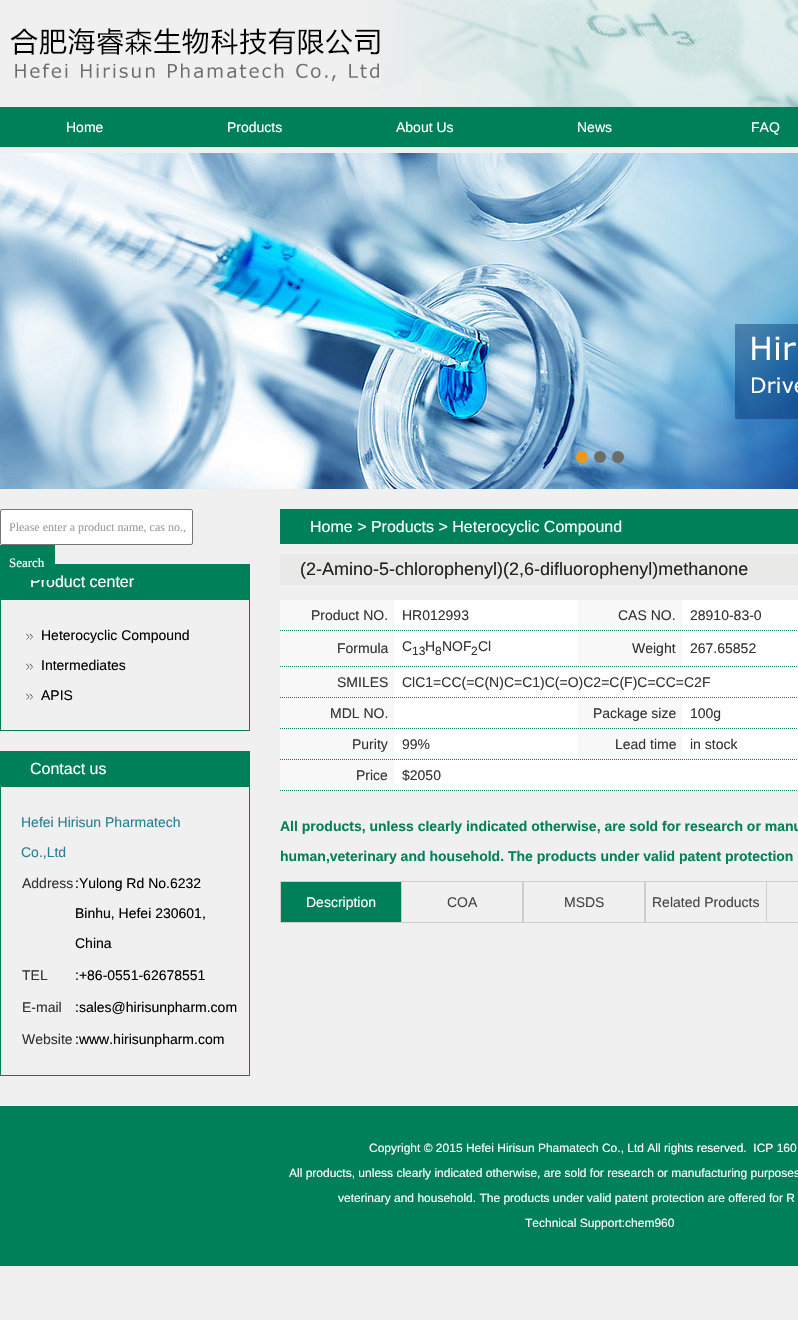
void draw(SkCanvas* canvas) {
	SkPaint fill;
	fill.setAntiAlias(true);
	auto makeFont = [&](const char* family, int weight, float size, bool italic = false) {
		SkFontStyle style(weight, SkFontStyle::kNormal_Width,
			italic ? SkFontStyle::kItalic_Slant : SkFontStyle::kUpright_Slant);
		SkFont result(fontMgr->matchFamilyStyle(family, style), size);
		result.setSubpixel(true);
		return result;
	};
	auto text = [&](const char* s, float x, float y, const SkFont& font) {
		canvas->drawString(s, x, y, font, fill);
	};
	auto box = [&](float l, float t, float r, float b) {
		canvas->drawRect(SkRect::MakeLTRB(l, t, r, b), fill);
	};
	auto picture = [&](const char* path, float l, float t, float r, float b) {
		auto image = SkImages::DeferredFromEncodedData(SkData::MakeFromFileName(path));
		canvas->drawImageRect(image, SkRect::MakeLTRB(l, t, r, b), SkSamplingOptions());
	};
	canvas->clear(0xFFF0F0F0);
	picture("image0.png", 368, 0, 798, 107);
	picture("image1.png", 10, 28, 380, 83);
	fill.setColor(0xFF008059);
	box(0, 107, 798, 147);
	picture("image2.png", 0, 153, 798, 489);
	fill.setColor(0xFFEE9A16);
	canvas->drawCircle(582, 457, 6, fill);
	fill.setColor(0xFF6C6D68);
	canvas->drawCircle(600, 457, 6, fill);
	canvas->drawCircle(618, 457, 6, fill);
	fill.setColor(0xFFFFFFFF);
	canvas->drawRoundRect(SkRect::MakeLTRB(0.5f, 509.5f, 192.5f, 544.5f), 1.5f, 1.5f, fill);
	fill.setStyle(SkPaint::kStroke_Style);
	fill.setStrokeWidth(1);
	fill.setColor(0xFF767676);
	canvas->drawRoundRect(SkRect::MakeLTRB(0.5f, 509.5f, 192.5f, 544.5f), 1.5f, 1.5f, fill);
	fill.setStyle(SkPaint::kFill_Style);
	fill.setColor(0xFF008059);
	box(0, 564, 250, 599);
	fill.setStyle(SkPaint::kStroke_Style);
	canvas->drawRect(SkRect::MakeLTRB(0.5f, 599.5f, 249.5f, 730.5f), fill);
	picture("image3.png", 26, 633, 33, 640);
	picture("image3.png", 26, 663, 33, 670);
	picture("image3.png", 26, 693, 33, 700);
	fill.setStyle(SkPaint::kFill_Style);
	box(0, 751, 250, 786);
	fill.setStyle(SkPaint::kStroke_Style);
	canvas->drawRect(SkRect::MakeLTRB(0.5f, 786.5f, 249.5f, 1075.5f), fill);
	fill.setStyle(SkPaint::kFill_Style);
	box(280, 509, 798, 544);
	fill.setColor(0xFFE9E9E8);
	box(280, 554, 798, 585);
	fill.setColor(0xFFFFFFFF);
	box(394, 600, 798, 791);
	fill.setColor(0xFFF8F8F8);
	box(280, 600, 394, 791);
	fill.setStyle(SkPaint::kStroke_Style);
	fill.setColor(0xFF008059);
	fill.setPathEffect(SkDashPathEffect::Make({{1, 1}}, 0));
	canvas->drawPath(SkPathBuilder().moveTo(280, 630.5f).lineTo(394, 630.5f).detach(), fill);
	fill.setPathEffect(nullptr);
	fill.setPathEffect(SkDashPathEffect::Make({{1, 1}}, 0));
	canvas->drawPath(SkPathBuilder().moveTo(394, 630.5f).lineTo(578, 630.5f).detach(), fill);
	fill.setPathEffect(nullptr);
	fill.setStyle(SkPaint::kFill_Style);
	fill.setColor(0xFFF8F8F8);
	box(578, 600, 682, 667);
	fill.setStyle(SkPaint::kStroke_Style);
	fill.setColor(0xFF008059);
	fill.setPathEffect(SkDashPathEffect::Make({{1, 1}}, 0));
	canvas->drawPath(SkPathBuilder().moveTo(578, 630.5f).lineTo(682, 630.5f).detach(), fill);
	fill.setPathEffect(nullptr);
	fill.setPathEffect(SkDashPathEffect::Make({{1, 1}}, 0));
	canvas->drawPath(SkPathBuilder().moveTo(682, 630.5f).lineTo(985, 630.5f).detach(), fill);
	fill.setPathEffect(nullptr);
	fill.setPathEffect(SkDashPathEffect::Make({{1, 1}}, 0));
	canvas->drawPath(SkPathBuilder().moveTo(280, 666.5f).lineTo(394, 666.5f).detach(), fill);
	fill.setPathEffect(nullptr);
	fill.setPathEffect(SkDashPathEffect::Make({{1, 1}}, 0));
	canvas->drawPath(SkPathBuilder().moveTo(394, 666.5f).lineTo(578, 666.5f).detach(), fill);
	fill.setPathEffect(nullptr);
	fill.setPathEffect(SkDashPathEffect::Make({{1, 1}}, 0));
	canvas->drawPath(SkPathBuilder().moveTo(578, 666.5f).lineTo(682, 666.5f).detach(), fill);
	fill.setPathEffect(nullptr);
	fill.setPathEffect(SkDashPathEffect::Make({{1, 1}}, 0));
	canvas->drawPath(SkPathBuilder().moveTo(682, 666.5f).lineTo(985, 666.5f).detach(), fill);
	fill.setPathEffect(nullptr);
	fill.setPathEffect(SkDashPathEffect::Make({{1, 1}}, 0));
	canvas->drawPath(SkPathBuilder().moveTo(280, 697.5f).lineTo(394, 697.5f).detach(), fill);
	fill.setPathEffect(nullptr);
	fill.setPathEffect(SkDashPathEffect::Make({{1, 1}}, 0));
	canvas->drawPath(SkPathBuilder().moveTo(394, 697.5f).lineTo(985, 697.5f).detach(), fill);
	fill.setPathEffect(nullptr);
	fill.setPathEffect(SkDashPathEffect::Make({{1, 1}}, 0));
	canvas->drawPath(SkPathBuilder().moveTo(280, 728.5f).lineTo(394, 728.5f).detach(), fill);
	fill.setPathEffect(nullptr);
	fill.setStyle(SkPaint::kFill_Style);
	fill.setColor(0xFFF8F8F8);
	box(578, 698, 682, 760);
	fill.setStyle(SkPaint::kStroke_Style);
	fill.setColor(0xFF008059);
	fill.setPathEffect(SkDashPathEffect::Make({{1, 1}}, 0));
	canvas->drawPath(SkPathBuilder().moveTo(578, 728.5f).lineTo(682, 728.5f).detach(), fill);
	fill.setPathEffect(nullptr);
	fill.setPathEffect(SkDashPathEffect::Make({{1, 1}}, 0));
	canvas->drawPath(SkPathBuilder().moveTo(682, 728.5f).lineTo(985, 728.5f).detach(), fill);
	fill.setPathEffect(nullptr);
	fill.setPathEffect(SkDashPathEffect::Make({{1, 1}}, 0));
	canvas->drawPath(SkPathBuilder().moveTo(394, 728.5f).lineTo(578, 728.5f).detach(), fill);
	fill.setPathEffect(nullptr);
	fill.setPathEffect(SkDashPathEffect::Make({{1, 1}}, 0));
	canvas->drawPath(SkPathBuilder().moveTo(280, 759.5f).lineTo(394, 759.5f).detach(), fill);
	fill.setPathEffect(nullptr);
	fill.setPathEffect(SkDashPathEffect::Make({{1, 1}}, 0));
	canvas->drawPath(SkPathBuilder().moveTo(394, 759.5f).lineTo(578, 759.5f).detach(), fill);
	fill.setPathEffect(nullptr);
	fill.setPathEffect(SkDashPathEffect::Make({{1, 1}}, 0));
	canvas->drawPath(SkPathBuilder().moveTo(578, 759.5f).lineTo(682, 759.5f).detach(), fill);
	fill.setPathEffect(nullptr);
	fill.setPathEffect(SkDashPathEffect::Make({{1, 1}}, 0));
	canvas->drawPath(SkPathBuilder().moveTo(682, 759.5f).lineTo(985, 759.5f).detach(), fill);
	fill.setPathEffect(nullptr);
	fill.setPathEffect(SkDashPathEffect::Make({{1, 1}}, 0));
	canvas->drawPath(SkPathBuilder().moveTo(280, 790.5f).lineTo(394, 790.5f).detach(), fill);
	fill.setPathEffect(nullptr);
	fill.setPathEffect(SkDashPathEffect::Make({{1, 1}}, 0));
	canvas->drawPath(SkPathBuilder().moveTo(394, 790.5f).lineTo(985, 790.5f).detach(), fill);
	fill.setPathEffect(nullptr);
	fill.setColor(0xFFCECECE);
	canvas->drawRect(SkRect::MakeLTRB(280.5f, 881.5f, 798.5f, 922.5f), fill);
	fill.setStyle(SkPaint::kFill_Style);
	fill.setColor(0xFF008059);
	box(281, 882, 401, 922);
	fill.setColor(0xFFCECECE);
	box(522, 882, 524, 922);
	box(401, 882, 402, 922);
	box(644, 882, 646, 922);
	box(766, 882, 767, 922);
	fill.setColor(0xFF008059);
	box(0, 1106, 798, 1266);
	auto font1 = makeFont("Liberation Sans", 400, 14);
	fill.setColor(0xFFFFFFFF);
	text("Home", 66, 132, font1);
	text("Products", 227, 132, font1);
	text("About Us", 396, 132, font1);
	text("News", 577, 132, font1);
	text("FAQ", 751, 132, font1);
	auto font2 = makeFont("Liberation Serif", 400, 12);
	fill.setColor(0xFF9E9A9A);
	text("Please enter a product name, cas no.,", 9, 531, font2);
	auto font3 = makeFont("Liberation Sans", 400, 16);
	fill.setColor(0xFFFFFFFF);
	text("Product center", 30, 587, font3);
	fill.setColor(0xFF008059);
	box(0, 545, 55, 580);
	auto font4 = makeFont("Liberation Serif", 400, 13);
	fill.setColor(0xFFFFFFFF);
	text("Search", 9, 567, font4);
	fill.setColor(0xFF000000);
	text("Heterocyclic Compound", 41, 640, font1);
	text("Intermediates", 41, 670, font1);
	text("APIS", 41, 700, font1);
	fill.setColor(0xFFFFFFFF);
	text("Contact us", 30, 774, font3);
	fill.setColor(0xFF277F93);
	text("Hefei Hirisun Pharmatech", 21, 827, font1);
	text("Co.,Ltd", 21, 857, font1);
	fill.setColor(0xFF333333);
	text("Address", 22, 888, font1);
	fill.setColor(0xFF000000);
	text(":Yulong Rd No.6232", 75, 888, font1);
	text("Binhu, Hefei 230601,", 75, 918, font1);
	text("China", 75, 948, font1);
	fill.setColor(0xFF333333);
	text("TEL", 22, 980, font1);
	fill.setColor(0xFF000000);
	text(":+86-0551-62678551", 75, 980, font1);
	fill.setColor(0xFF333333);
	text("E-mail", 22, 1012, font1);
	fill.setColor(0xFF000000);
	text(":sales@hirisunpharm.com", 75, 1012, font1);
	fill.setColor(0xFF333333);
	text("Website", 22, 1044, font1);
	fill.setColor(0xFF000000);
	text(":www.hirisunpharm.com", 75, 1044, font1);
	fill.setColor(0xFFFFFFFF);
	text("Home > Products > Heterocyclic Compound", 310, 532, font3);
	auto font5 = makeFont("Liberation Sans", 400, 18);
	fill.setColor(0xFF222222);
	text("(2-Amino-5-chlorophenyl)(2,6-difluorophenyl)methanone", 300, 575, font5);
	fill.setColor(0xFF333333);
	text("Product NO.", 311, 620, font1);
	text("HR012993", 402, 620, font1);
	text("CAS NO.", 618, 620, font1);
	text("28910-83-0", 690, 620, font1);
	text("Formula", 337, 653, font1);
	text("C", 402, 651, font1);
	auto font6 = makeFont("Liberation Sans", 400, 12);
	text("13", 412, 655, font6);
	text("H", 425, 651, font1);
	text("8", 435, 655, font6);
	text("NOF", 442, 651, font1);
	text("2", 471, 655, font6);
	text("Cl", 478, 651, font1);
	text("Weight", 632, 653, font1);
	text("267.65852", 690, 653, font1);
	text("SMILES", 337, 687, font1);
	text("ClC1=CC(=C(N)C=C1)C(=O)C2=C(F)C=CC=C2F", 402, 687, font1);
	text("MDL NO.", 330, 718, font1);
	text("Package size", 593, 718, font1);
	text("100g", 690, 718, font1);
	text("Purity", 352, 749, font1);
	text("99%", 402, 749, font1);
	text("Lead time", 615, 749, font1);
	text("in stock", 690, 749, font1);
	text("Price", 356, 780, font1);
	text("$2050", 402, 780, font1);
	auto font7 = makeFont("Liberation Sans", 700, 14);
	fill.setColor(0xFF008059);
	text("All products, unless clearly indicated otherwise, are sold for research or manu", 280, 831, font7);
	text("human,veterinary and household. The products under valid patent protection", 280, 861, font7);
	fill.setColor(0xFFFFFFFF);
	text("Description", 306, 907, font1);
	fill.setColor(0xFF444444);
	text("COA", 447, 907, font1);
	text("MSDS", 564, 907, font1);
	text("Related Products", 652, 907, font1);
	fill.setColor(0xFFFFFFFF);
	text("Copyright © 2015 Hefei Hirisun Phamatech Co., Ltd All rights reserved.  ICP 160", 369, 1152, font6);
	text("All products, unless clearly indicated otherwise, are sold for research or manufacturing purposes", 289, 1177, font6);
	text("veterinary and household. The products under valid patent protection are offered for R", 338, 1202, font6);
	text("Technical Support:chem960", 525, 1227, font6);
}
